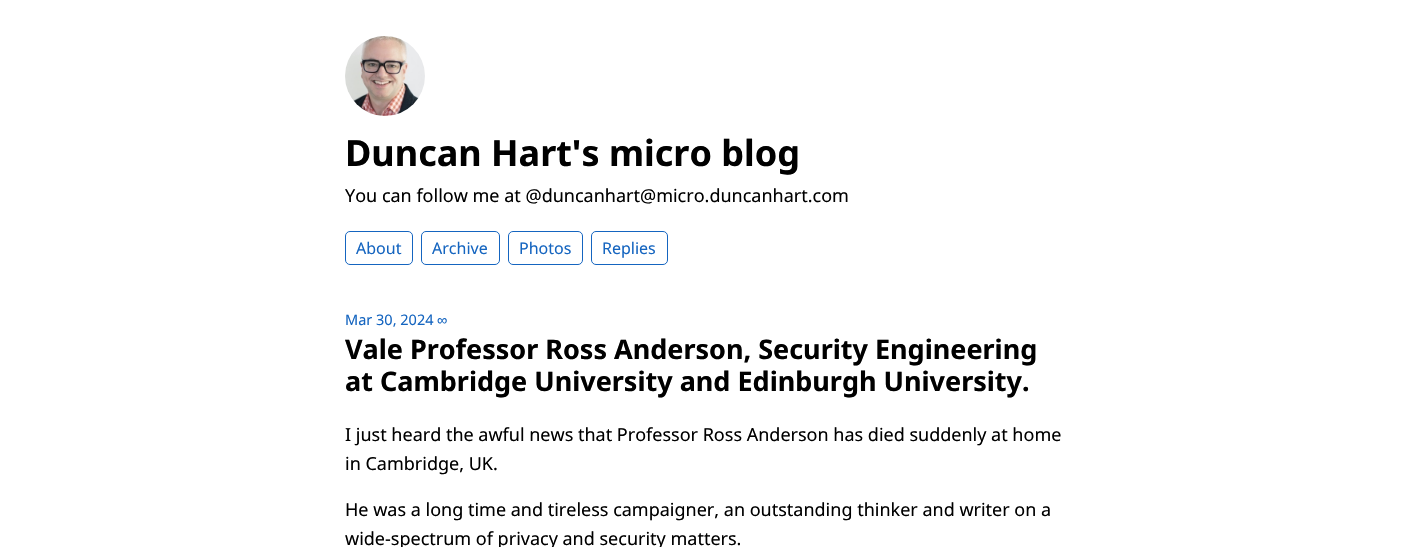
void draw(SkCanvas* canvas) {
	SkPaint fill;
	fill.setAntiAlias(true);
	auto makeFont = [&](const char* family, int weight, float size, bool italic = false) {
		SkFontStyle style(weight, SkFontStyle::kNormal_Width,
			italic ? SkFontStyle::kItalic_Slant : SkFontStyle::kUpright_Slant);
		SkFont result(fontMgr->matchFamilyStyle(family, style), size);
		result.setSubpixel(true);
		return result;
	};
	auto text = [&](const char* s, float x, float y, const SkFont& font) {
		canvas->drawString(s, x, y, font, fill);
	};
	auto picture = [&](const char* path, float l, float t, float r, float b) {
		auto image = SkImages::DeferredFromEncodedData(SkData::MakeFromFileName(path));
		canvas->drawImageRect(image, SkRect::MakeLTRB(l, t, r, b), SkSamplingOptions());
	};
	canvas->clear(0xFFFFFFFF);
	picture("image0.png", 345, 36, 425, 116);
	fill.setStyle(SkPaint::kStroke_Style);
	fill.setStrokeWidth(1);
	fill.setColor(0xFF1565C0);
	canvas->drawRoundRect(SkRect::MakeLTRB(345.5f, 231.5f, 412.5f, 264.5f), 4.5f, 4.5f, fill);
	canvas->drawRoundRect(SkRect::MakeLTRB(421.5f, 231.5f, 499.5f, 264.5f), 4.5f, 4.5f, fill);
	canvas->drawRoundRect(SkRect::MakeLTRB(508.5f, 231.5f, 582.5f, 264.5f), 4.5f, 4.5f, fill);
	canvas->drawRoundRect(SkRect::MakeLTRB(591.5f, 231.5f, 667.5f, 264.5f), 4.5f, 4.5f, fill);
	auto font1 = makeFont("Noto Sans", 700, 36);
	fill.setStyle(SkPaint::kFill_Style);
	fill.setColor(0xFF000000);
	text("Duncan Hart's micro blog", 345, 166, font1);
	auto font2 = makeFont("Noto Sans", 400, 18);
	text("You can follow me at @duncanhart@micro.duncanhart.com", 345, 202, font2);
	auto font3 = makeFont("Noto Sans", 400, 16);
	fill.setColor(0xFF1565C0);
	text("About", 356, 254, font3);
	text("Archive", 432, 254, font3);
	text("Photos", 519, 254, font3);
	text("Replies", 602, 254, font3);
	auto font4 = makeFont("Noto Sans", 400, 14.5f);
	text("Mar 30, 2024", 345, 325, font4);
	auto font5 = makeFont("Liberation Sans", 400, 14.5f);
	text("∞", 437, 325, font5);
	auto font6 = makeFont("Noto Sans", 700, 27);
	fill.setColor(0xFF000000);
	text("Vale Professor Ross Anderson, Security Engineering", 345, 359, font6);
	text("at Cambridge University and Edinburgh University.", 345, 391, font6);
	text("I just heard the awful news that Professor Ross Anderson has died suddenly at home", 345, 441, font2);
	text("in Cambridge, UK.", 345, 470, font2);
	text("He was a long time and tireless campaigner, an outstanding thinker and writer on a", 345, 516, font2);
	text("wide-spectrum of privacy and security matters.", 345, 545, font2);
}
